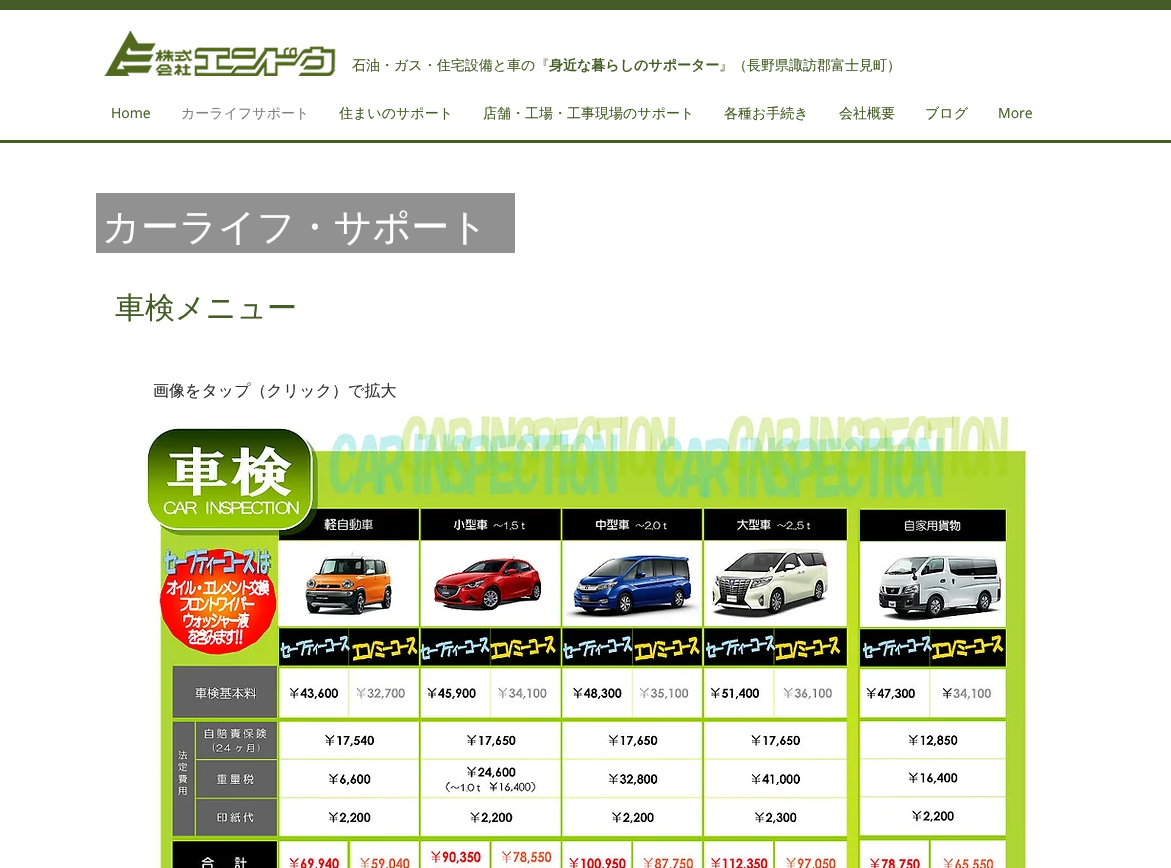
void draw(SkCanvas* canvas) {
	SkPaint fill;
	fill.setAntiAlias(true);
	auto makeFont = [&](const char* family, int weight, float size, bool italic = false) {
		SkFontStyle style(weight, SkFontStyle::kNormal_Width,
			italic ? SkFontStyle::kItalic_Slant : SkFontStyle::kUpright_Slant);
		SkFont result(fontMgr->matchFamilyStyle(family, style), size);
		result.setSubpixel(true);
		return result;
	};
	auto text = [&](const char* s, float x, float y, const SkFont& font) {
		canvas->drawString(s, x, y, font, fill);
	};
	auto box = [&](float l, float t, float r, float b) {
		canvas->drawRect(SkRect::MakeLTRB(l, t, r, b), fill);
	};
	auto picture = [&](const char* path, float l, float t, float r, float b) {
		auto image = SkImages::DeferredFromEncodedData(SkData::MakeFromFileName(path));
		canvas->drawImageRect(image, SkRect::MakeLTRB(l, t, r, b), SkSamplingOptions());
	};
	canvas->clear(0xFFFFFFFF);
	fill.setColor(0xFF445D26);
	box(0, 0, 1171, 10);
	box(0, 140, 1171, 143);
	picture("image0.png", 104, 31, 336, 76);
	fill.setColor(0xFF929191);
	box(96, 193, 515, 253);
	picture("image1.png", 145, 410, 1027, 868);
	auto font1 = makeFont("WenQuanYi Zen Hei", 500, 14);
	fill.setColor(0xFF445D26);
	text("石油・ガス・住宅設備と車の『", 352, 70, font1);
	auto font2 = makeFont("WenQuanYi Zen Hei", 700, 14);
	text("身近な暮らしのサポーター", 549, 70, font2);
	text("』（長野県諏訪郡富士見町）", 719, 70, font1);
	auto font3 = makeFont("Open Sans", 400, 14);
	text("Home", 111, 118, font3);
	fill.setColor(0xFF7F7F7F);
	text("カーライフサポート", 181, 118, font1);
	fill.setColor(0xFF445D26);
	text("住まいのサポート", 339, 118, font1);
	text("店舗・工場・工事現場のサポート", 483, 118, font1);
	text("各種お手続き", 724, 118, font1);
	text("会社概要", 839, 118, font1);
	text("ブログ", 925, 118, font1);
	text("More", 998, 118, font3);
	auto font4 = makeFont("WenQuanYi Zen Hei", 500, 38);
	fill.setColor(0xFFFEFDFD);
	text("カーライフ・サポート", 102, 240, font4);
	auto font5 = makeFont("WenQuanYi Zen Hei", 500, 30);
	fill.setColor(0xFF445D26);
	text("車検メニュー", 115, 318, font5);
	auto font6 = makeFont("WenQuanYi Zen Hei", 500, 16);
	fill.setColor(0xFF2E2E2E);
	text("画像をタップ（クリック）で拡大", 153, 396, font6);
}
